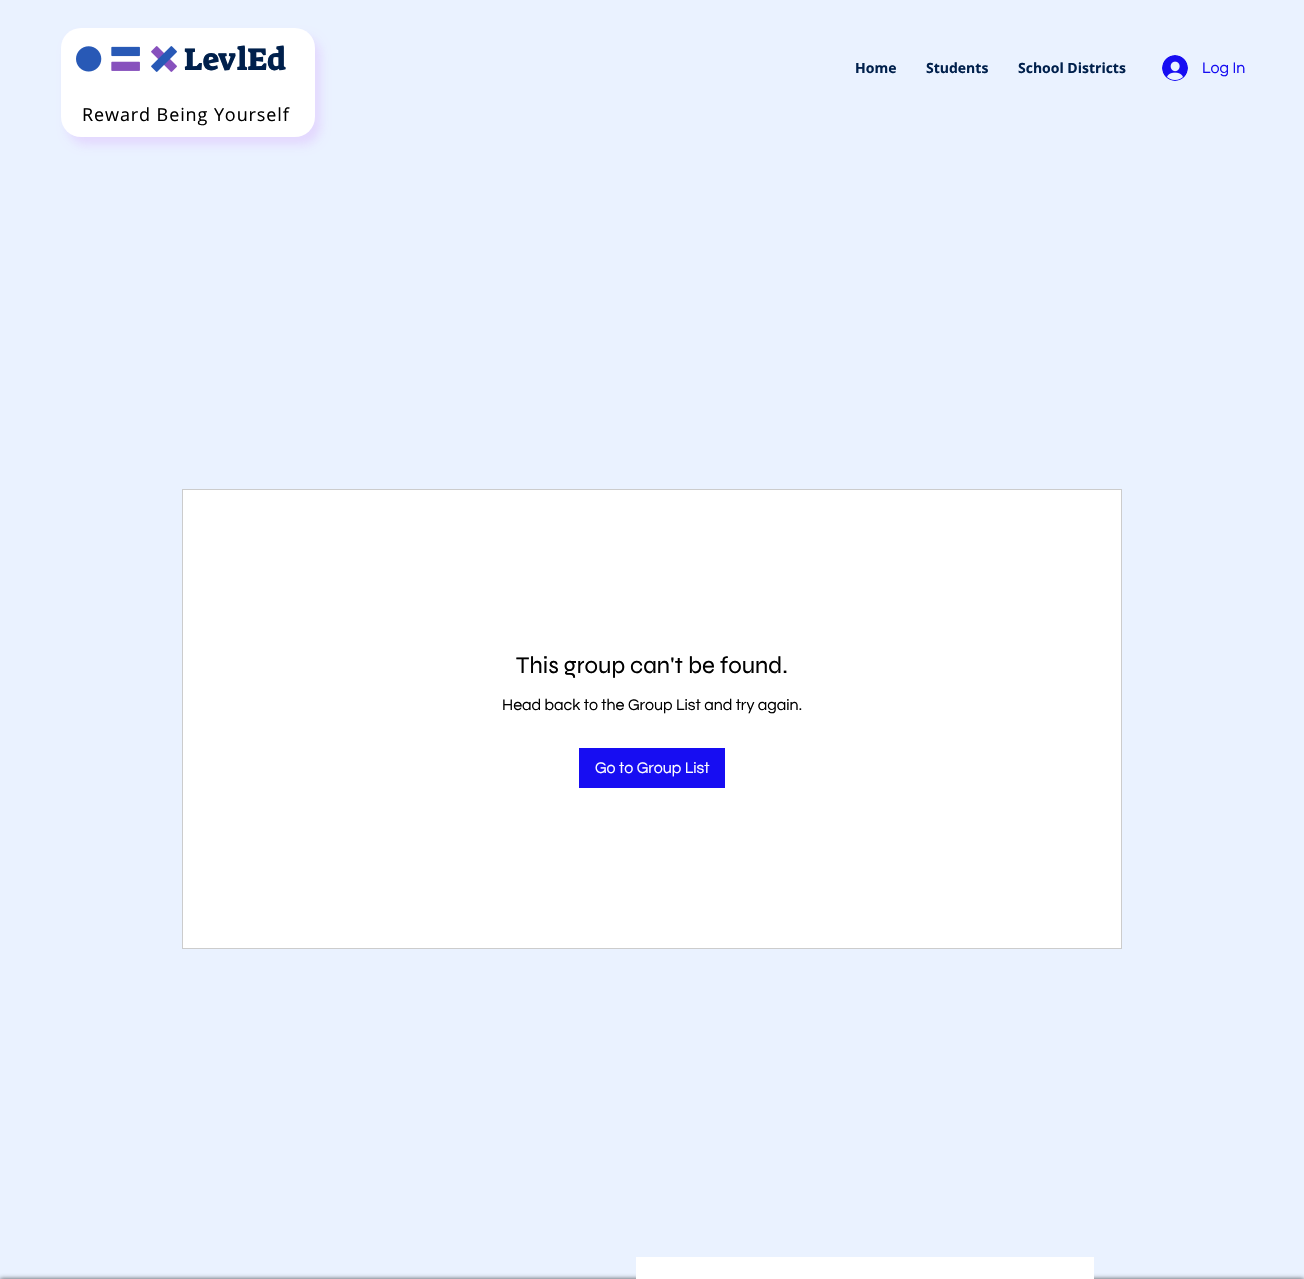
void draw(SkCanvas* canvas) {
	SkPaint fill;
	fill.setAntiAlias(true);
	auto makeFont = [&](const char* family, int weight, float size, bool italic = false) {
		SkFontStyle style(weight, SkFontStyle::kNormal_Width,
			italic ? SkFontStyle::kItalic_Slant : SkFontStyle::kUpright_Slant);
		SkFont result(fontMgr->matchFamilyStyle(family, style), size);
		result.setSubpixel(true);
		return result;
	};
	auto text = [&](const char* s, float x, float y, const SkFont& font) {
		canvas->drawString(s, x, y, font, fill);
	};
	auto spacedText = [&](const char* s, float x, float y, const SkFont& font, const SkPaint& ink, float letter, float word) {
		std::vector<SkGlyphID> glyphs(font.countText(s, strlen(s), SkTextEncoding::kUTF8));
		std::vector<float> xs(glyphs.size());
		font.textToGlyphs(s, strlen(s), SkTextEncoding::kUTF8, glyphs);
		font.getXPos(glyphs, xs, x);
		float extra = 0;
		for (size_t i = 0; i < glyphs.size(); i++) {
			xs[i] += extra;
			extra += letter + word * (glyphs[i] == font.unicharToGlyph(' '));
		}
		canvas->drawTextBlob(SkTextBlob::MakeFromPosHGlyphs(glyphs, xs, y, font), 0, 0, ink);
	};
	auto box = [&](float l, float t, float r, float b) {
		canvas->drawRect(SkRect::MakeLTRB(l, t, r, b), fill);
	};
	auto roundBox = [&](float l, float t, float r, float b, float radius) {
		canvas->drawRoundRect(SkRect::MakeLTRB(l, t, r, b), radius, radius, fill);
	};
	auto picture = [&](const char* path, float l, float t, float r, float b) {
		auto image = SkImages::DeferredFromEncodedData(SkData::MakeFromFileName(path));
		canvas->drawImageRect(image, SkRect::MakeLTRB(l, t, r, b), SkSamplingOptions());
	};
	canvas->clear(0xFFEAF2FF);
	fill.setColor(0x1AA700FA);
	fill.setMaskFilter(SkMaskFilter::MakeBlur(kNormal_SkBlurStyle, 5));
	canvas->drawRoundRect(SkRect::MakeLTRB(67, 36, 321, 145), 20, 20, fill);
	fill.setMaskFilter(nullptr);
	fill.setColor(0xFFFFFFFF);
	roundBox(61, 28, 315, 137, 20);
	picture("image0.png", 76, 46, 177, 72);
	picture("image1.png", 1162, 55, 1188, 81);
	canvas->drawRect(SkRect::MakeLTRB(182.5f, 489.5f, 1121.5f, 948.5f), fill);
	fill.setStyle(SkPaint::kStroke_Style);
	fill.setStrokeWidth(1);
	fill.setColor(0xFFCCCCCC);
	canvas->drawRect(SkRect::MakeLTRB(182.5f, 489.5f, 1121.5f, 948.5f), fill);
	fill.setStyle(SkPaint::kFill_Style);
	fill.setColor(0xFF170DF2);
	box(579, 748, 725, 788);
	fill.setColor(0xB3000000);
	fill.setMaskFilter(SkMaskFilter::MakeBlur(kNormal_SkBlurStyle, 2.5f));
	canvas->drawRect(SkRect::MakeLTRB(0, 1279, 1304, 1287), fill);
	fill.setMaskFilter(nullptr);
	fill.setColor(0xFFFFFFFF);
	box(636, 1257, 1094, 1279);
	auto font1 = makeFont("Suez One", 400, 32);
	fill.setColor(0xFF00204C);
	text("LevlEd", 184, 70, font1);
	auto font2 = makeFont("Open Sans", 400, 18);
	fill.setColor(0xFF000000);
	spacedText("Reward Being Yourself", 82, 121, font2, fill, 0.9f, 0);
	auto font3 = makeFont("Open Sans", 700, 14);
	fill.setColor(0xFF00204C);
	text("Home", 855, 73, font3);
	text("Students", 926, 73, font3);
	text("School Districts", 1018, 73, font3);
	auto font4 = makeFont("Questrial", 400, 16);
	fill.setColor(0xFF170DF2);
	text("Log In", 1202, 73, font4);
	auto font5 = makeFont("Syne", 400, 24);
	fill.setColor(0xFF000000);
	text("This group can't be found.", 516, 673, font5);
	text("Head back to the Group List and try again.", 502, 710, font4);
	fill.setColor(0xFFFFFFFF);
	text("Go to Group List", 595, 773, font4);
}
